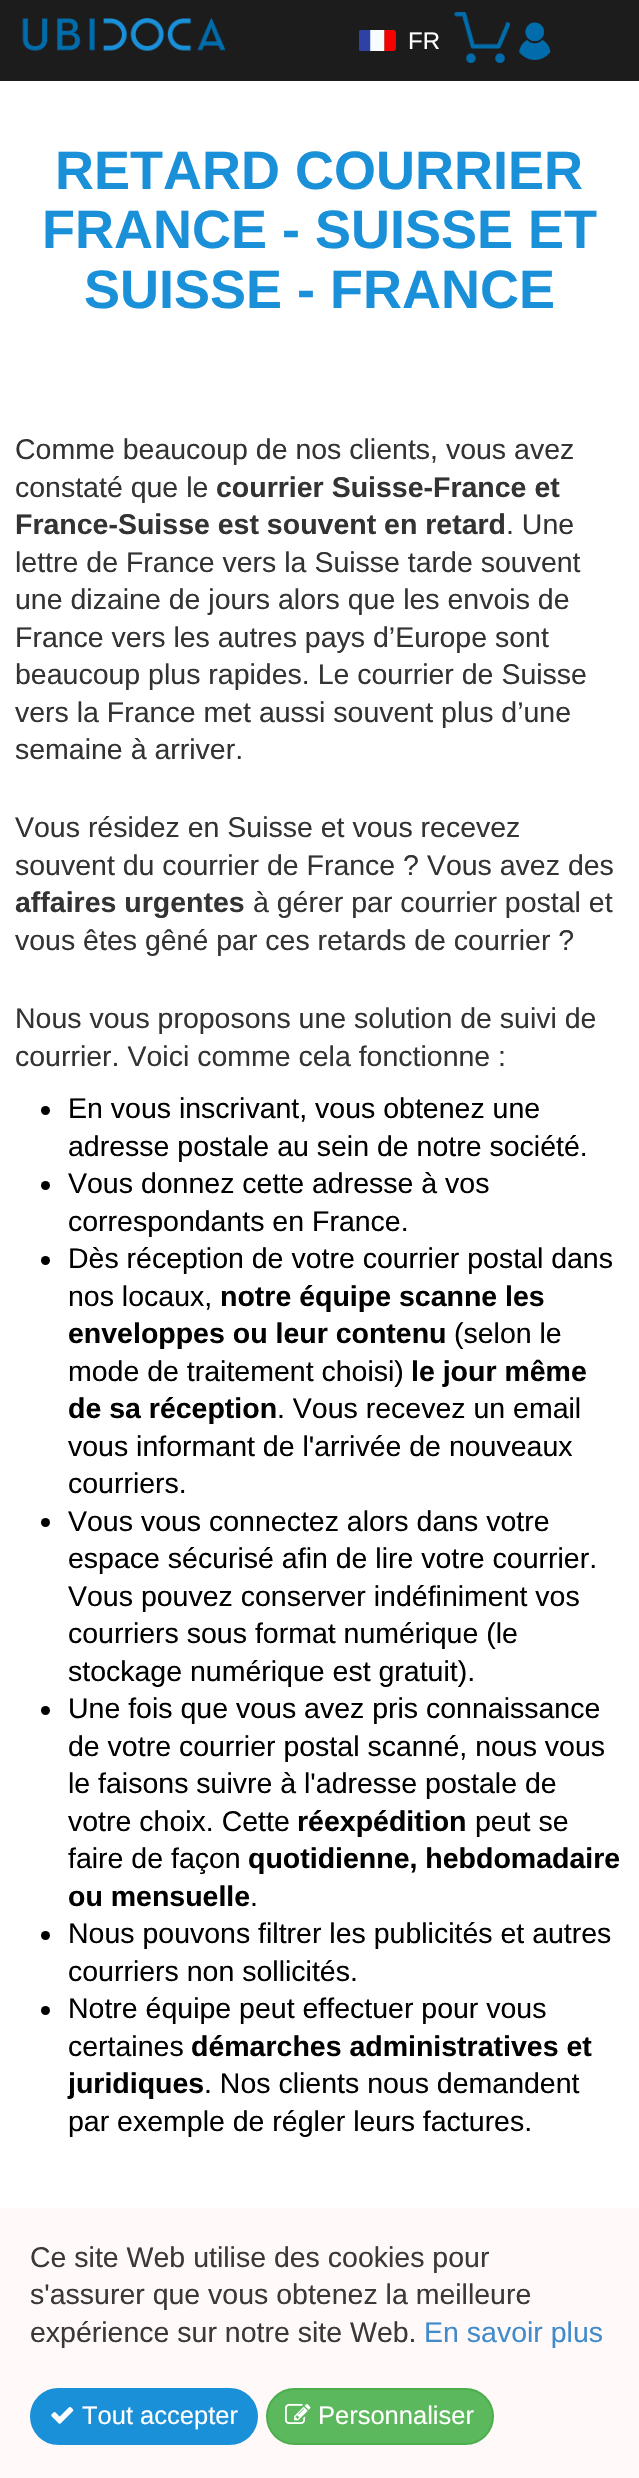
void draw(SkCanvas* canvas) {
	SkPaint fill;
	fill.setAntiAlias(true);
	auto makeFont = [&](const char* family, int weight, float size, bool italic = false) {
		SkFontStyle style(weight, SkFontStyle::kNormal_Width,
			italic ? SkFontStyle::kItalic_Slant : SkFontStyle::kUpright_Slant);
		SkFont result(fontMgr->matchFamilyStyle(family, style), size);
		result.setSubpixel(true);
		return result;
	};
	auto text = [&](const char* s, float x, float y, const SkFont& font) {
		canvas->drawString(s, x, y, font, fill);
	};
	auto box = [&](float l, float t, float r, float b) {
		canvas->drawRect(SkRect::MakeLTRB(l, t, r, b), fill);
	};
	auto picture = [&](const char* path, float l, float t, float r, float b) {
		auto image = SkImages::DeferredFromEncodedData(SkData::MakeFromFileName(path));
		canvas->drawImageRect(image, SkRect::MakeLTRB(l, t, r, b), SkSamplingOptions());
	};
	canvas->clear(0xFFFFFFFF);
	fill.setColor(0xFF1C1C1C);
	box(0, 0, 639, 81);
	picture("image0.png", 22, 18, 225, 51);
	picture("image1.png", 359, 30, 396, 51);
	picture("image2.png", 454, 12, 510, 63);
	picture("image3.png", 519, 22, 551, 60);
	fill.setColor(0xFF000000);
	canvas->drawCircle(45.5f, 1110.5f, 4.5f, fill);
	canvas->drawCircle(45.5f, 1185.5f, 4.5f, fill);
	canvas->drawCircle(45.5f, 1260.5f, 4.5f, fill);
	canvas->drawCircle(45.5f, 1522.5f, 4.5f, fill);
	canvas->drawCircle(45.5f, 1710.5f, 4.5f, fill);
	canvas->drawCircle(45.5f, 1935.5f, 4.5f, fill);
	canvas->drawCircle(45.5f, 2010.5f, 4.5f, fill);
	fill.setColor(0xFFFFF9F9);
	box(0, 2208, 639, 2478);
	fill.setColor(0xFF1A90D9);
	canvas->drawRoundRect(SkRect::MakeLTRB(31, 2389, 257, 2444), 27.5f, 27.5f, fill);
	fill.setStyle(SkPaint::kStroke_Style);
	fill.setStrokeWidth(2);
	canvas->drawRoundRect(SkRect::MakeLTRB(31, 2389, 257, 2444), 27.5f, 27.5f, fill);
	picture("image4.png", 51, 2406, 74, 2424);
	fill.setStyle(SkPaint::kFill_Style);
	fill.setColor(0xFF5CB85C);
	canvas->drawRoundRect(SkRect::MakeLTRB(267, 2389, 493, 2444), 27.5f, 27.5f, fill);
	fill.setStyle(SkPaint::kStroke_Style);
	fill.setColor(0xFF4CAE4C);
	canvas->drawRoundRect(SkRect::MakeLTRB(267, 2389, 493, 2444), 27.5f, 27.5f, fill);
	picture("image5.png", 285, 2403, 311, 2424);
	auto font1 = makeFont("Liberation Sans", 400, 24);
	fill.setStyle(SkPaint::kFill_Style);
	fill.setColor(0xFFFFFFFF);
	text("FR", 408, 49, font1);
	auto font2 = makeFont("Liberation Sans", 700, 54);
	fill.setColor(0xFF1A90D9);
	text("RETARD COURRIER", 55, 189, font2);
	text("FRANCE - SUISSE ET", 42, 248, font2);
	text("SUISSE - FRANCE", 84, 308, font2);
	auto font3 = makeFont("Liberation Sans", 400, 28.5f);
	fill.setColor(0xFF333333);
	text("Comme beaucoup de nos clients, vous avez", 15, 459, font3);
	text("constaté que le", 15, 497, font3);
	auto font4 = makeFont("Liberation Sans", 700, 28.5f);
	text("courrier Suisse-France et", 216, 497, font4);
	text("France-Suisse est souvent en retard", 15, 534, font4);
	text(". Une", 506, 534, font3);
	text("lettre de France vers la Suisse tarde souvent", 15, 572, font3);
	text("une dizaine de jours alors que les envois de", 15, 609, font3);
	text("France vers les autres pays d’Europe sont", 15, 647, font3);
	text("beaucoup plus rapides. Le courrier de Suisse", 15, 684, font3);
	text("vers la France met aussi souvent plus d’une", 15, 722, font3);
	text("semaine à arriver.", 15, 759, font3);
	text("Vous résidez en Suisse et vous recevez", 15, 837, font3);
	text("souvent du courrier de France ? Vous avez des", 15, 875, font3);
	text("affaires urgentes", 15, 912, font4);
	text("à gérer par courrier postal et", 253, 912, font3);
	text("vous êtes gêné par ces retards de courrier ?", 15, 950, font3);
	text("Nous vous proposons une solution de suivi de", 15, 1028, font3);
	text("courrier. Voici comme cela fonctionne :", 15, 1066, font3);
	fill.setColor(0xFF000000);
	text("En vous inscrivant, vous obtenez une", 68, 1118, font3);
	text("adresse postale au sein de notre société.", 68, 1156, font3);
	text("Vous donnez cette adresse à vos", 68, 1193, font3);
	text("correspondants en France.", 68, 1231, font3);
	text("Dès réception de votre courrier postal dans", 68, 1268, font3);
	text("nos locaux,", 68, 1306, font3);
	text("notre équipe scanne les", 220, 1306, font4);
	text("enveloppes ou leur contenu", 68, 1343, font4);
	text("(selon le", 454, 1343, font3);
	text("mode de traitement choisi)", 68, 1381, font3);
	text("le jour même", 411, 1381, font4);
	text("de sa réception", 68, 1418, font4);
	text(". Vous recevez un email", 277, 1418, font3);
	text("vous informant de l'arrivée de nouveaux", 68, 1456, font3);
	text("courriers.", 68, 1493, font3);
	text("Vous vous connectez alors dans votre", 68, 1531, font3);
	text("espace sécurisé afin de lire votre courrier.", 68, 1568, font3);
	text("Vous pouvez conserver indéfiniment vos", 68, 1606, font3);
	text("courriers sous format numérique (le", 68, 1643, font3);
	text("stockage numérique est gratuit).", 68, 1681, font3);
	text("Une fois que vous avez pris connaissance", 68, 1718, font3);
	text("de votre courrier postal scanné, nous vous", 68, 1756, font3);
	text("le faisons suivre à l'adresse postale de", 68, 1793, font3);
	text("votre choix. Cette", 68, 1831, font3);
	text("réexpédition", 297, 1831, font4);
	text("peut se", 475, 1831, font3);
	text("faire de façon", 68, 1868, font3);
	text("quotidienne, hebdomadaire", 248, 1868, font4);
	text("ou mensuelle", 68, 1906, font4);
	text(".", 250, 1906, font3);
	text("Nous pouvons filtrer les publicités et autres", 68, 1943, font3);
	text("courriers non sollicités.", 68, 1981, font3);
	text("Notre équipe peut effectuer pour vous", 68, 2018, font3);
	text("certaines", 68, 2056, font3);
	text("démarches administratives et", 191, 2056, font4);
	text("juridiques", 68, 2093, font4);
	text(". Nos clients nous demandent", 204, 2093, font3);
	text("par exemple de régler leurs factures.", 68, 2131, font3);
	fill.setColor(0xFF3A3838);
	text("Ce site Web utilise des cookies pour", 30, 2267, font3);
	text("s'assurer que vous obtenez la meilleure", 30, 2304, font3);
	text("expérience sur notre site Web.", 30, 2342, font3);
	fill.setColor(0xFF428BCA);
	text("En savoir plus", 424, 2342, font3);
	auto font5 = makeFont("Liberation Sans", 400, 25.5f);
	fill.setColor(0xFFFFFFFF);
	text("Tout accepter", 82, 2424, font5);
	text("Personnaliser", 318, 2424, font5);
}
